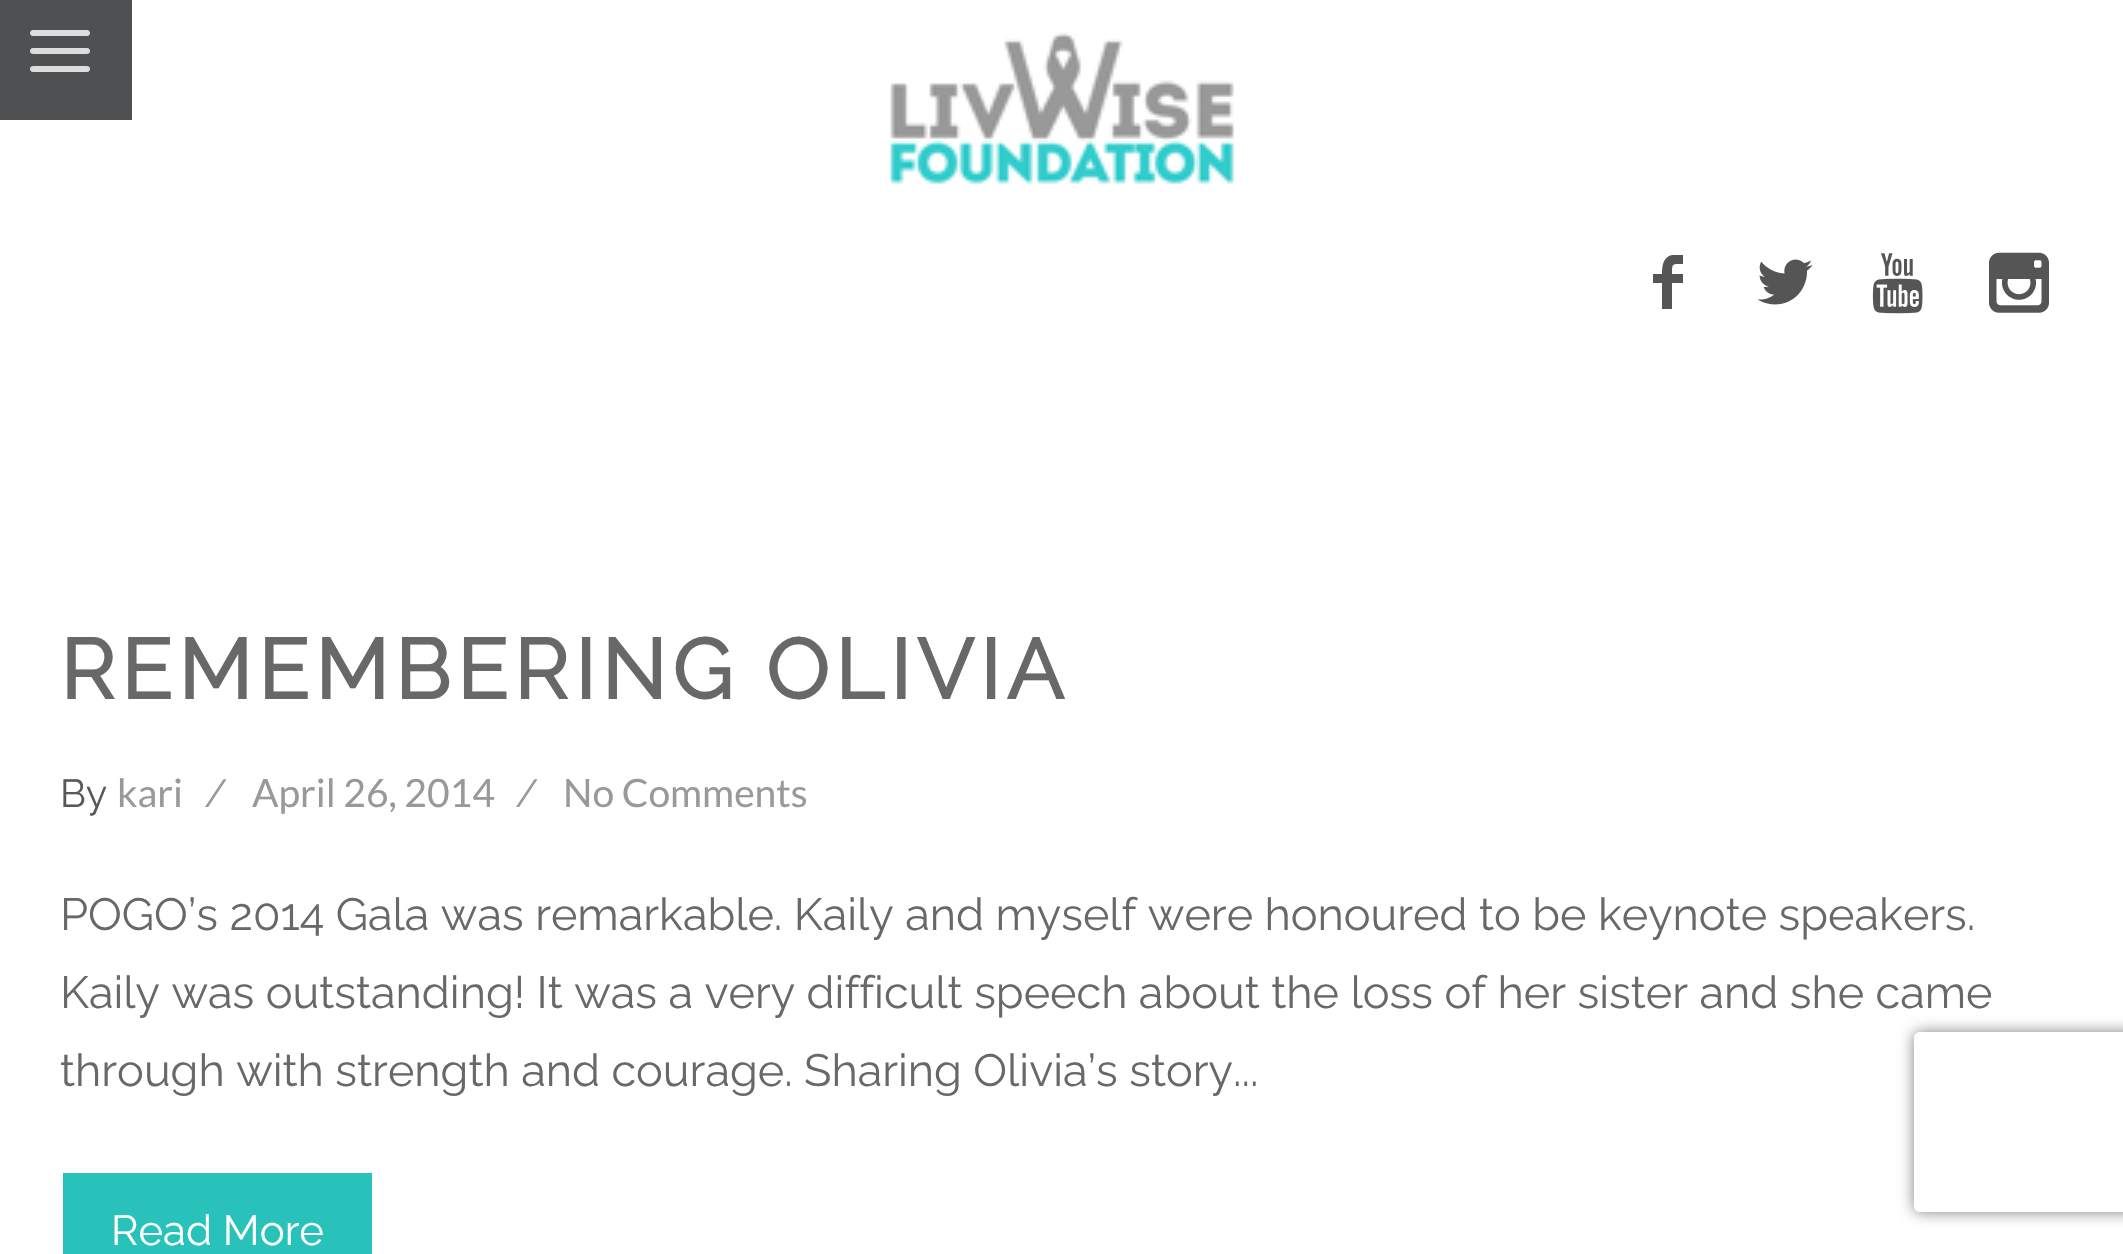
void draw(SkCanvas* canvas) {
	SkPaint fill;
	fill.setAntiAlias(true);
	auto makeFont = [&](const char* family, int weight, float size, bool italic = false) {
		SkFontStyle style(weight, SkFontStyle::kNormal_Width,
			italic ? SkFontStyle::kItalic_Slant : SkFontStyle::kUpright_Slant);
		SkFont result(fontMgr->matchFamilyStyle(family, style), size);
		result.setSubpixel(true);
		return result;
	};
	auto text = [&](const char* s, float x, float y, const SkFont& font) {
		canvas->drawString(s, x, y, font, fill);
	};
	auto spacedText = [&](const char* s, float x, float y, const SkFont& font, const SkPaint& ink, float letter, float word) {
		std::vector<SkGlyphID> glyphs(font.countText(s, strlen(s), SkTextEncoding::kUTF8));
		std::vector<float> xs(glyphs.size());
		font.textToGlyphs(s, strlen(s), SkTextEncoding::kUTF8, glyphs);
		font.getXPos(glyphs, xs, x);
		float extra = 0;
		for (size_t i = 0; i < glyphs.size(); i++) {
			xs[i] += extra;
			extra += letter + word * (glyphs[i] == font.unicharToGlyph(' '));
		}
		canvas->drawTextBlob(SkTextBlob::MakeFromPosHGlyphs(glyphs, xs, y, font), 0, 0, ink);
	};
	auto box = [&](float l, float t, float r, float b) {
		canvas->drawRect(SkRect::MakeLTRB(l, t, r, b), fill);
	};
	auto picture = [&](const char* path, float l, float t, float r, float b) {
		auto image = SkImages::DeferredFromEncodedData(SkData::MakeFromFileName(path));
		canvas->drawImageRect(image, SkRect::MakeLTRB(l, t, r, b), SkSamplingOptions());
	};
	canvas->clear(0xFFFFFFFF);
	fill.setColor(0xFF4E5052);
	box(0, 0, 132, 120);
	picture("image0.png", 30, 30, 90, 72);
	picture("image1.png", 890, 32, 1234, 184);
	fill.setColor(0xFF555555);
	canvas->drawPath(SkPathBuilder().moveTo(1683, 264).cubicTo(1672, 264, 1672, 263, 1672, 274).lineTo(1683, 274).lineTo(1683, 283).lineTo(1672, 283).lineTo(1672, 309).lineTo(1662, 309).lineTo(1662, 283).lineTo(1653, 283).lineTo(1653, 274).lineTo(1662, 274).cubicTo(1662, 266, 1663, 257, 1672, 255).lineTo(1683, 255).close().detach(), fill);
	picture("image2.png", 1757, 259, 1813, 305);
	picture("image3.png", 1872, 253, 1923, 314);
	picture("image4.png", 1989, 252, 2049, 313);
	fill.setColor(0xFF28C2BA);
	box(63, 1173, 372, 1254);
	canvas->save();
	canvas->clipPath(SkPathBuilder(SkPathFillType::kEvenOdd).moveTo(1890, 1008).lineTo(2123, 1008).lineTo(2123, 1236).lineTo(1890, 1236).close().moveTo(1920, 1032).lineTo(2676, 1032).cubicTo(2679.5f, 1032, 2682, 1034.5f, 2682, 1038).lineTo(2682, 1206).cubicTo(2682, 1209.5f, 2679.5f, 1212, 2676, 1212).lineTo(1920, 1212).cubicTo(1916.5f, 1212, 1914, 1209.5f, 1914, 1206).lineTo(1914, 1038).cubicTo(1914, 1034.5f, 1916.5f, 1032, 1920, 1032).close().detach(), true);
	fill.setColor(0xFF808080);
	fill.setMaskFilter(SkMaskFilter::MakeBlur(kNormal_SkBlurStyle, 7.5f));
	canvas->drawRoundRect(SkRect::MakeLTRB(1914, 1032, 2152, 1212), 6, 6, fill);
	fill.setMaskFilter(nullptr);
	canvas->restore();
	auto font1 = makeFont("Raleway", 700, 84);
	fill.setColor(0xFF686868);
	spacedText("REMEMBERING OLIVIA", 60, 699, font1, fill, 6, 0);
	auto font2 = makeFont("Raleway", 100, 39);
	fill.setColor(0xFF56595C);
	text("By", 60, 807, font2);
	auto font3 = makeFont("Lato", 400, 39);
	fill.setColor(0xFF999999);
	text("kari", 117, 807, font3);
	text("/", 204, 807, font2);
	text("April 26, 2014", 252, 807, font3);
	text("/", 515, 807, font2);
	text("No Comments", 563, 807, font3);
	auto font4 = makeFont("Raleway", 100, 45);
	fill.setColor(0xFF686868);
	text("POGO’s 2014 Gala was remarkable. Kaily and myself were honoured to be keynote speakers.", 60, 930, font4);
	text("Kaily was outstanding! It was a very difficult speech about the loss of her sister and she came", 60, 1008, font4);
	text("through with strength and courage. Sharing Olivia’s story...", 60, 1086, font4);
	auto font5 = makeFont("Raleway", 100, 42);
	fill.setColor(0xFFFFFFFF);
	text("Read More", 111, 1245, font5);
}
